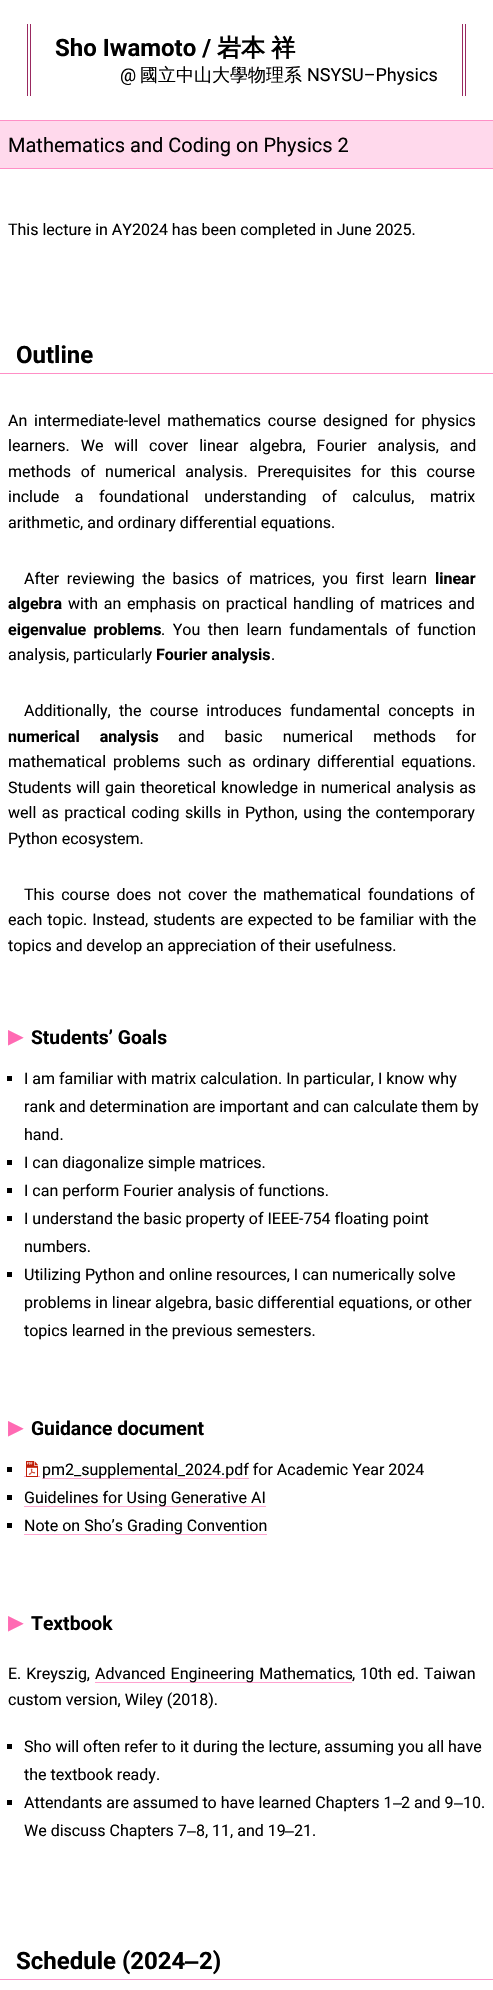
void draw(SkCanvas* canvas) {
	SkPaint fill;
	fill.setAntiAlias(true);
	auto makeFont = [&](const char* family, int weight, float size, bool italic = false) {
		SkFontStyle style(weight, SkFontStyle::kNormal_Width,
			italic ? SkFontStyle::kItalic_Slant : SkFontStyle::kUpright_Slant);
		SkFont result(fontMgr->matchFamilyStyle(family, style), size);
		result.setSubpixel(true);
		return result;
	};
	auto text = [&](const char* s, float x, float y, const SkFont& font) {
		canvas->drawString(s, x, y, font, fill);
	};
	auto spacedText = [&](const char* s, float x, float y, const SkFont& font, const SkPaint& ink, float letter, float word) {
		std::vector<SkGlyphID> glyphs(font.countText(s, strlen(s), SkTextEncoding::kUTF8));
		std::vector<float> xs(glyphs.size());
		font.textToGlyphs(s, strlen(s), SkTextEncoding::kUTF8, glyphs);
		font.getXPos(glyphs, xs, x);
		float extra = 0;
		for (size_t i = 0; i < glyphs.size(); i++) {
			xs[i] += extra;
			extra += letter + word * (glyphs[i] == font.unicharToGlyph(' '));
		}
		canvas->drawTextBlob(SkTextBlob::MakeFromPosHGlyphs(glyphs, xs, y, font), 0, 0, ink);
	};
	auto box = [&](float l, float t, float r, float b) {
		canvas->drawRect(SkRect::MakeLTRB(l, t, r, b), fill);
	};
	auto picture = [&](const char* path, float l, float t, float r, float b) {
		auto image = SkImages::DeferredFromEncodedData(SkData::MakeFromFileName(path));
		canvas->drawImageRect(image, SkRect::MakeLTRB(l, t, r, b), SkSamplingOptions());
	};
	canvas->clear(0xFFFFFFFF);
	fill.setColor(0xFF992960);
	box(462, 24, 463, 96);
	box(465, 24, 466, 96);
	box(27, 24, 28, 96);
	box(30, 24, 31, 96);
	fill.setColor(0xFFFFD9EC);
	box(0, 121, 493, 168);
	fill.setColor(0xFFFF8FC6);
	box(0, 120, 493, 121);
	box(0, 168, 493, 169);
	box(0, 373, 493, 374);
	fill.setColor(0xFF000000);
	box(7, 1076, 12, 1081);
	box(7, 1160, 12, 1165);
	box(7, 1188, 12, 1193);
	box(7, 1216, 12, 1221);
	box(7, 1272, 12, 1277);
	box(7, 1467, 12, 1472);
	fill.setColor(0xFFFFA2CF);
	box(24, 1476, 40, 1477);
	box(42, 1478, 249, 1479);
	picture("image0.png", 26, 1461, 38, 1477);
	fill.setColor(0xFF000000);
	box(7, 1495, 12, 1500);
	fill.setColor(0xFFFFA2CF);
	box(24, 1506, 266, 1507);
	fill.setColor(0xFF000000);
	box(7, 1523, 12, 1528);
	fill.setColor(0xFFFFA2CF);
	box(24, 1534, 267, 1535);
	box(95, 1682, 352, 1683);
	fill.setColor(0xFF000000);
	box(7, 1744, 12, 1749);
	box(7, 1800, 12, 1805);
	fill.setColor(0xFFFF8FC6);
	box(0, 1979, 493, 1980);
	auto font1 = makeFont("Roboto", 700, 24);
	fill.setColor(0xFF000000);
	text("Sho Iwamoto /", 55, 56, font1);
	auto font2 = makeFont("WenQuanYi Zen Hei", 700, 24);
	spacedText("岩本 祥", 217, 56, font2, fill, 0, -1);
	auto font3 = makeFont("Roboto", 400, 18);
	text("@", 120, 81, font3);
	auto font4 = makeFont("WenQuanYi Zen Hei", 500, 18);
	text("國立中山大學物理系", 140, 81, font4);
	text("NSYSU–Physics", 307, 81, font3);
	auto font5 = makeFont("Roboto", 400, 20);
	text("Mathematics and Coding on Physics 2", 8, 152, font5);
	auto font6 = makeFont("Roboto", 400, 16);
	text("This lecture in AY2024 has been completed in June 2025.", 8, 235, font6);
	text("Outline", 16, 363, font1);
	spacedText("An intermediate-level mathematics course designed for physics", 8, 426, font6, fill, 0, 2.75f);
	spacedText("learners. We will cover linear algebra, Fourier analysis, and", 8, 451, font6, fill, 0, 7);
	spacedText("methods of numerical analysis. Prerequisites for this course", 8, 477, font6, fill, 0, 5.75f);
	spacedText("include a foundational understanding of calculus, matrix", 8, 502, font6, fill, 0, 11.5f);
	text("arithmetic, and ordinary differential equations.", 8, 528, font6);
	spacedText("After reviewing the basics of matrices, you first learn", 24, 584, font6, fill, 0, 3.75f);
	auto font7 = makeFont("Roboto", 700, 16);
	text("linear", 435, 584, font7);
	text("algebra", 8, 609, font7);
	spacedText("with an emphasis on practical handling of matrices and", 68, 609, font6, fill, 0, 1.75f);
	spacedText("eigenvalue problems", 8, 635, font7, fill, 0, 3.5f);
	spacedText(". You then learn fundamentals of function", 161, 635, font6, fill, 0, 3.5f);
	text("analysis, particularly", 8, 660, font6);
	text("Fourier analysis", 156, 660, font7);
	text(".", 271, 660, font6);
	spacedText("Additionally, the course introduces fundamental concepts in", 24, 716, font6, fill, 0, 4.25f);
	spacedText("numerical analysis", 8, 742, font7, fill, 0, 16);
	spacedText("and basic numerical methods for", 178, 742, font6, fill, 0, 16);
	spacedText("mathematical problems such as ordinary differential equations.", 8, 767, font6, fill, 0, 3);
	spacedText("Students will gain theoretical knowledge in numerical analysis as", 8, 793, font6, fill, 0, 1);
	spacedText("well as practical coding skills in Python, using the contemporary", 8, 818, font6, fill, 0, 1.5f);
	text("Python ecosystem.", 8, 844, font6);
	spacedText("This course does not cover the mathematical foundations of", 24, 900, font6, fill, 0, 2.75f);
	spacedText("each topic. Instead, students are expected to be familiar with the", 8, 925, font6, fill, 0, 1);
	text("topics and develop an appreciation of their usefulness.", 8, 951, font6);
	auto font8 = makeFont("DejaVu Sans", 700, 19.25f);
	fill.setColor(0xFFFF6AB3);
	text("▶", 8, 1043, font8);
	auto font9 = makeFont("Roboto", 700, 19.25f);
	fill.setColor(0xFF000000);
	text("Students’ Goals", 31, 1044, font9);
	text("I am familiar with matrix calculation. In particular, I know why", 24, 1084, font6);
	text("rank and determination are important and can calculate them by", 24, 1112, font6);
	text("hand.", 24, 1140, font6);
	text("I can diagonalize simple matrices.", 24, 1168, font6);
	text("I can perform Fourier analysis of functions.", 24, 1196, font6);
	text("I understand the basic property of IEEE-754 floating point", 24, 1224, font6);
	text("numbers.", 24, 1252, font6);
	text("Utilizing Python and online resources, I can numerically solve", 24, 1280, font6);
	text("problems in linear algebra, basic differential equations, or other", 24, 1308, font6);
	text("topics learned in the previous semesters.", 24, 1336, font6);
	fill.setColor(0xFFFF6AB3);
	text("▶", 8, 1434, font8);
	fill.setColor(0xFF000000);
	text("Guidance document", 31, 1435, font9);
	text("pm2_supplemental_2024.pdf for Academic Year 2024", 42, 1475, font6);
	text("Guidelines for Using Generative AI", 24, 1503, font6);
	text("Note on Sho’s Grading Convention", 24, 1531, font6);
	fill.setColor(0xFFFF6AB3);
	text("▶", 8, 1629, font8);
	fill.setColor(0xFF000000);
	text("Textbook", 31, 1630, font9);
	spacedText("E. Kreyszig,", 8, 1679, font6, fill, 0, 1);
	spacedText("Advanced Engineering Mathematics", 95, 1679, font6, fill, 0, 1);
	spacedText(", 10th ed. Taiwan", 352, 1679, font6, fill, 0, 1);
	text("custom version, Wiley (2018).", 8, 1705, font6);
	text("Sho will often refer to it during the lecture, assuming you all have", 24, 1752, font6);
	text("the textbook ready.", 24, 1780, font6);
	text("Attendants are assumed to have learned Chapters 1", 24, 1808, font6);
	auto font10 = makeFont("Liberation Sans", 400, 16);
	text("‒", 393, 1808, font10);
	text("2 and 9", 401, 1808, font6);
	text("‒", 454, 1808, font10);
	text("10.", 463, 1808, font6);
	text("We discuss Chapters 7", 24, 1836, font6);
	text("‒", 187, 1836, font10);
	text("8, 11, and 19", 196, 1836, font6);
	text("‒", 285, 1836, font10);
	text("21.", 294, 1836, font6);
	text("Schedule (2024", 16, 1969, font1);
	auto font11 = makeFont("Liberation Sans", 700, 24);
	text("‒", 185, 1969, font11);
	text("2)", 199, 1969, font1);
}
